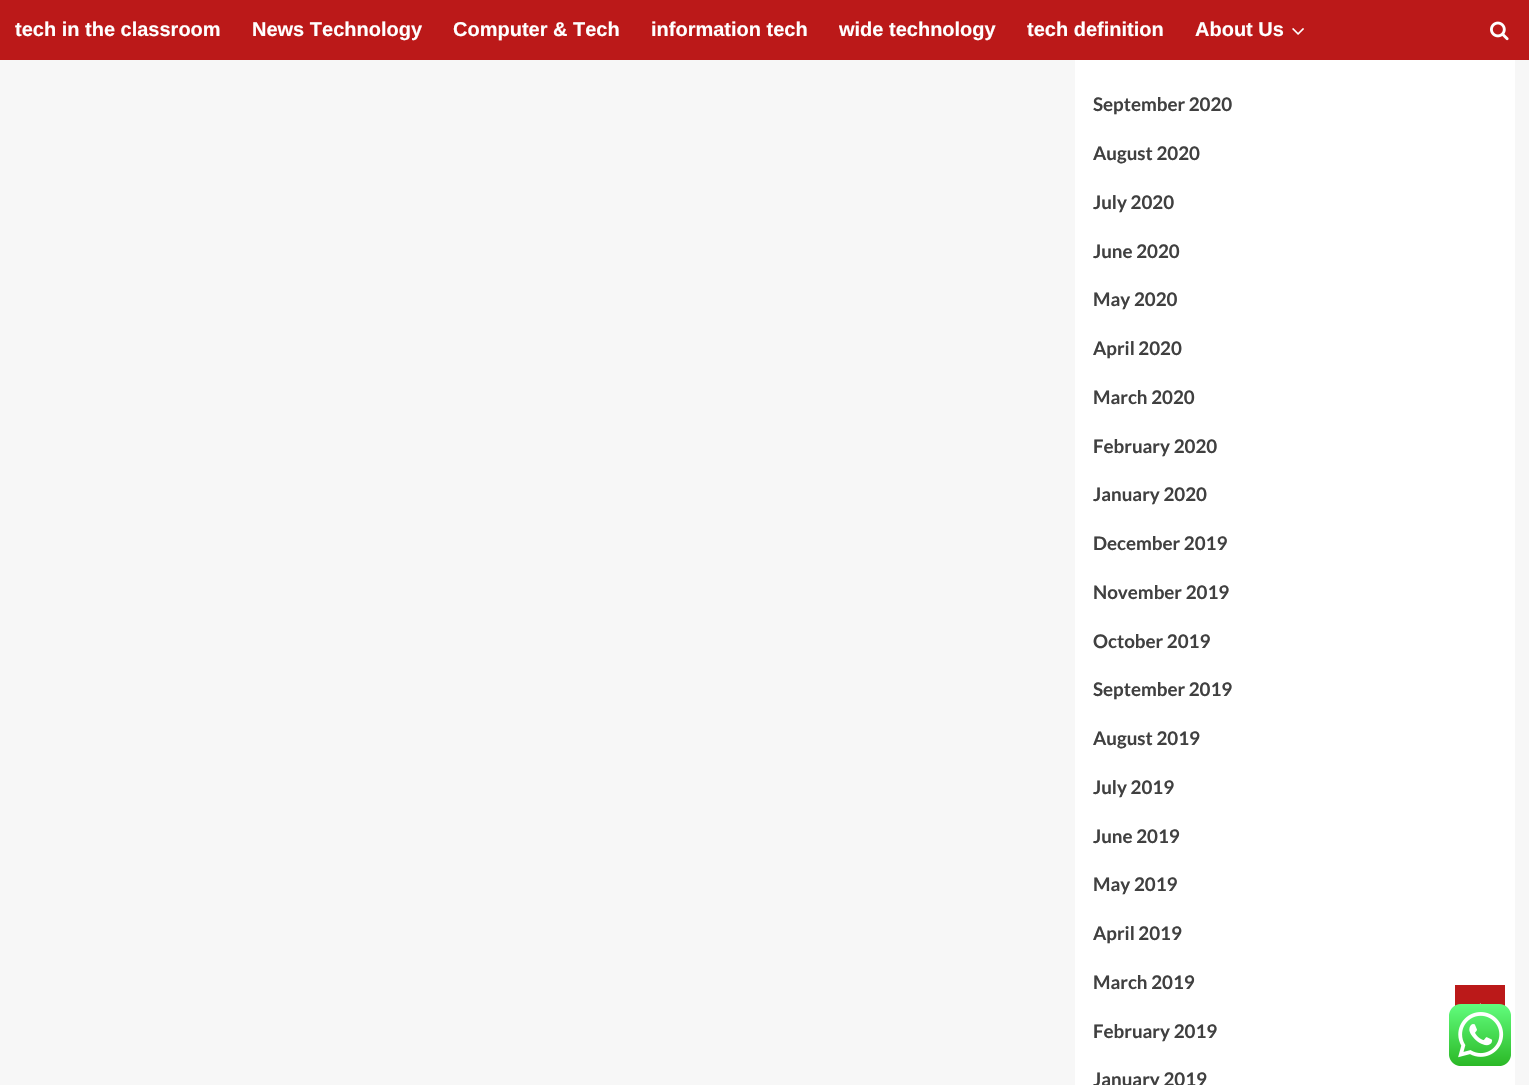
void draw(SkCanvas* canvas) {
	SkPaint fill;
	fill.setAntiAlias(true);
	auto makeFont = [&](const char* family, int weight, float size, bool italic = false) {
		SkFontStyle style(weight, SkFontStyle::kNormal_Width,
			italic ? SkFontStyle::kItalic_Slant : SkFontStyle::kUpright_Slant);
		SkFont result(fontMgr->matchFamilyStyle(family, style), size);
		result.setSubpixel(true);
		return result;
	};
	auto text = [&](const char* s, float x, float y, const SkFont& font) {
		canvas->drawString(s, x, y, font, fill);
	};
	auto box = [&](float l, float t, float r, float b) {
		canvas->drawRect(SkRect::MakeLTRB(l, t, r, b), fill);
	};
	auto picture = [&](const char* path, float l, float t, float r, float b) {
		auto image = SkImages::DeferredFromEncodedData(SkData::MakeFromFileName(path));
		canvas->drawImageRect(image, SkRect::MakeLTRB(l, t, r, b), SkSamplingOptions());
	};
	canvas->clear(0xFFF7F7F7);
	fill.setColor(0xFFBB1919);
	box(0, 0, 1529, 60);
	picture("image0.png", 1292, 28, 1304, 35);
	picture("image1.png", 1490, 21, 1509, 41);
	fill.setColor(0xFFFFFFFF);
	box(1075, 60, 1515, 1085);
	fill.setColor(0xFFBB1919);
	box(1455, 985, 1505, 1006);
	picture("image2.png", 1479, 1003, 1481, 1004);
	picture("image3.png", 1449, 1004, 1511, 1066);
	auto font1 = makeFont("Liberation Sans", 700, 20);
	fill.setColor(0xFFFFFFFF);
	text("tech in the classroom", 15, 36, font1);
	text("News Technology", 252, 36, font1);
	text("Computer & Tech", 453, 36, font1);
	text("information tech", 651, 36, font1);
	text("wide technology", 839, 36, font1);
	text("tech definition", 1027, 36, font1);
	text("About Us", 1195, 36, font1);
	auto font2 = makeFont("Lato", 700, 18.75f);
	fill.setColor(0xFF404040);
	text("September 2020", 1093, 111, font2);
	text("August 2020", 1093, 160, font2);
	text("July 2020", 1093, 209, font2);
	text("June 2020", 1093, 258, font2);
	text("May 2020", 1093, 306, font2);
	text("April 2020", 1093, 355, font2);
	text("March 2020", 1093, 404, font2);
	text("February 2020", 1093, 453, font2);
	text("January 2020", 1093, 501, font2);
	text("December 2019", 1093, 550, font2);
	text("November 2019", 1093, 599, font2);
	text("October 2019", 1093, 648, font2);
	text("September 2019", 1093, 696, font2);
	text("August 2019", 1093, 745, font2);
	text("July 2019", 1093, 794, font2);
	text("June 2019", 1093, 843, font2);
	text("May 2019", 1093, 891, font2);
	text("April 2019", 1093, 940, font2);
	text("March 2019", 1093, 989, font2);
	text("February 2019", 1093, 1038, font2);
	text("January 2019", 1093, 1086, font2);
}
